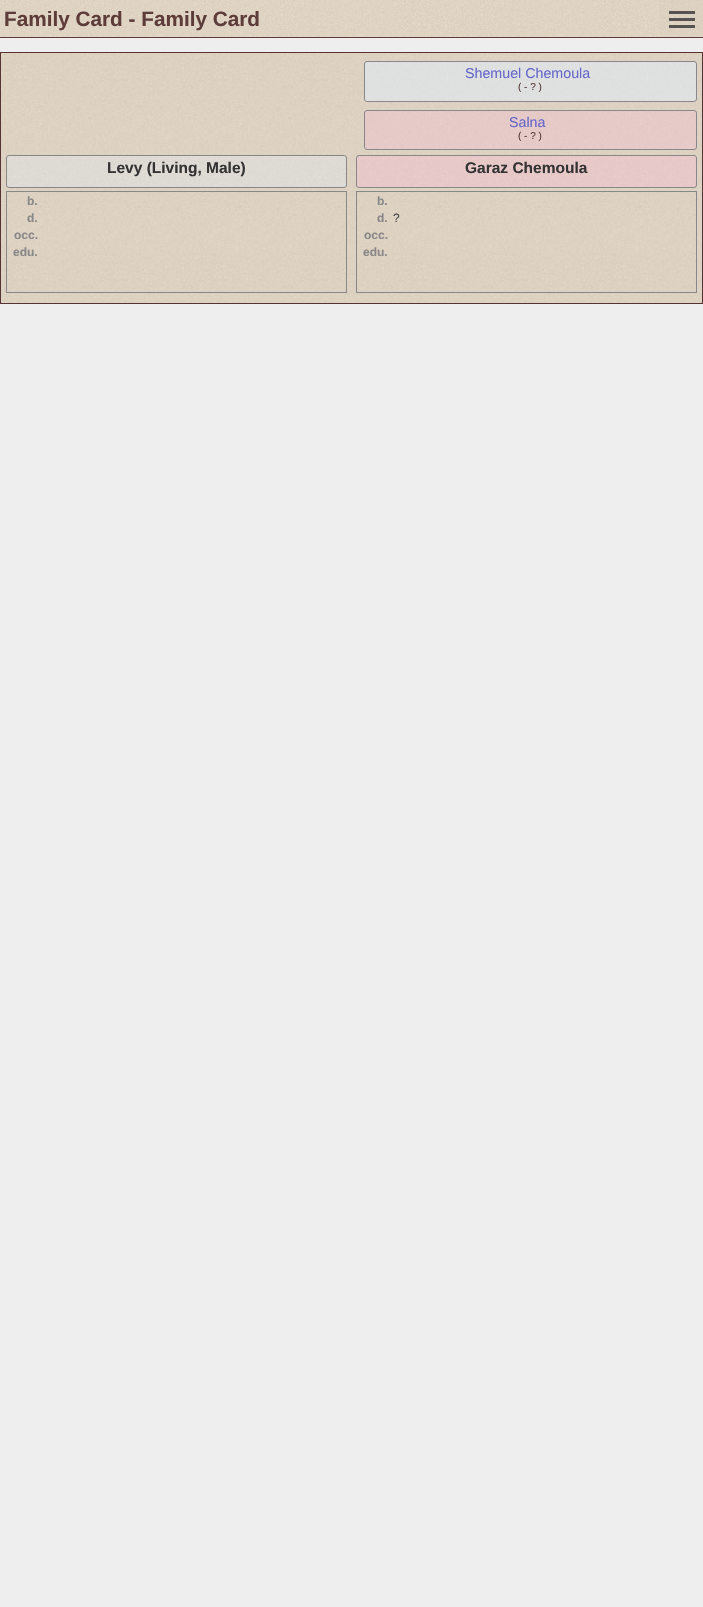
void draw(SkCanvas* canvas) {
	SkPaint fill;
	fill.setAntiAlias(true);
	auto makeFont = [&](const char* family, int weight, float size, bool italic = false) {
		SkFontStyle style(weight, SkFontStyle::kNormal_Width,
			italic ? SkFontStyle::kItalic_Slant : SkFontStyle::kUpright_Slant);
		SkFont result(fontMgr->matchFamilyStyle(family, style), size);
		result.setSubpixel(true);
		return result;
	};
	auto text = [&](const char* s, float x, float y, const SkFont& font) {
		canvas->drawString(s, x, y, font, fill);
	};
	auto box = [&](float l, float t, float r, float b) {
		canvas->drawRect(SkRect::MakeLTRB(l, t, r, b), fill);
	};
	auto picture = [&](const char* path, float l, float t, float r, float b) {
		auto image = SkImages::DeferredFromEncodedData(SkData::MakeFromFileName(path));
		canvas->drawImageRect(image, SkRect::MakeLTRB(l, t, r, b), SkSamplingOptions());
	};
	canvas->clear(0xFFEEEEEE);
	picture("image0.png", 0, 0, 703, 38);
	fill.setColor(0xF2563433);
	box(0, 37, 703, 38);
	picture("image1.png", 659, 0, 703, 35);
	picture("image2.png", 669, 11, 695, 28);
	picture("image3.png", 1, 53, 702, 303);
	fill.setStyle(SkPaint::kStroke_Style);
	fill.setStrokeWidth(1);
	fill.setColor(0xFF563433);
	canvas->drawRect(SkRect::MakeLTRB(0.5f, 52.5f, 702.5f, 303.5f), fill);
	fill.setStyle(SkPaint::kFill_Style);
	fill.setColor(0x82E0EFFE);
	canvas->drawRoundRect(SkRect::MakeLTRB(364.5f, 61.5f, 696.5f, 101.5f), 2.5f, 2.5f, fill);
	fill.setStyle(SkPaint::kStroke_Style);
	fill.setColor(0xFF888888);
	canvas->drawRoundRect(SkRect::MakeLTRB(364.5f, 61.5f, 696.5f, 101.5f), 2.5f, 2.5f, fill);
	fill.setStyle(SkPaint::kFill_Style);
	fill.setColor(0x47FCB7D6);
	canvas->drawRoundRect(SkRect::MakeLTRB(364.5f, 110.5f, 696.5f, 149.5f), 2.5f, 2.5f, fill);
	fill.setStyle(SkPaint::kStroke_Style);
	fill.setColor(0xFF888888);
	canvas->drawRoundRect(SkRect::MakeLTRB(364.5f, 110.5f, 696.5f, 149.5f), 2.5f, 2.5f, fill);
	fill.setStyle(SkPaint::kFill_Style);
	fill.setColor(0x4DE0EFFE);
	canvas->drawRoundRect(SkRect::MakeLTRB(6.5f, 155.5f, 346.5f, 187.5f), 2.5f, 2.5f, fill);
	fill.setStyle(SkPaint::kStroke_Style);
	fill.setColor(0xFF888888);
	canvas->drawRoundRect(SkRect::MakeLTRB(6.5f, 155.5f, 346.5f, 187.5f), 2.5f, 2.5f, fill);
	fill.setStyle(SkPaint::kFill_Style);
	fill.setColor(0x4DFCB7D6);
	canvas->drawRoundRect(SkRect::MakeLTRB(356.5f, 155.5f, 696.5f, 187.5f), 2.5f, 2.5f, fill);
	fill.setStyle(SkPaint::kStroke_Style);
	fill.setColor(0xFF888888);
	canvas->drawRoundRect(SkRect::MakeLTRB(356.5f, 155.5f, 696.5f, 187.5f), 2.5f, 2.5f, fill);
	canvas->drawRect(SkRect::MakeLTRB(6.5f, 191.5f, 346.5f, 292.5f), fill);
	canvas->drawRect(SkRect::MakeLTRB(356.5f, 191.5f, 696.5f, 292.5f), fill);
	auto font1 = makeFont("Liberation Sans", 700, 20.75f);
	fill.setStyle(SkPaint::kFill_Style);
	fill.setColor(0xFF5D3C3A);
	text("Family Card - Family Card", 4, 26, font1);
	auto font2 = makeFont("Liberation Sans", 400, 14.25f);
	fill.setColor(0xFF6666CC);
	text("Shemuel Chemoula", 465, 78, font2);
	auto font3 = makeFont("Liberation Sans", 400, 10);
	fill.setColor(0xFF563433);
	text("( - ? )", 518, 90, font3);
	fill.setColor(0xFF6666CC);
	text("Salna", 509, 127, font2);
	fill.setColor(0xFF563433);
	text("( - ? )", 518, 139, font3);
	auto font4 = makeFont("Liberation Sans", 700, 15.5f);
	fill.setColor(0xFF333333);
	text("Levy (Living, Male)", 107, 173, font4);
	text("Garaz Chemoula", 465, 173, font4);
	auto font5 = makeFont("Liberation Sans", 700, 12);
	fill.setColor(0xFF888888);
	text("b.", 27, 205, font5);
	text("d.", 27, 222, font5);
	text("occ.", 14, 239, font5);
	text("edu.", 13, 256, font5);
	text("b.", 377, 205, font5);
	text("d.", 377, 222, font5);
	auto font6 = makeFont("Liberation Sans", 400, 12);
	fill.setColor(0xFF444444);
	text("?", 393, 222, font6);
	fill.setColor(0xFF888888);
	text("occ.", 364, 239, font5);
	text("edu.", 363, 256, font5);
}
